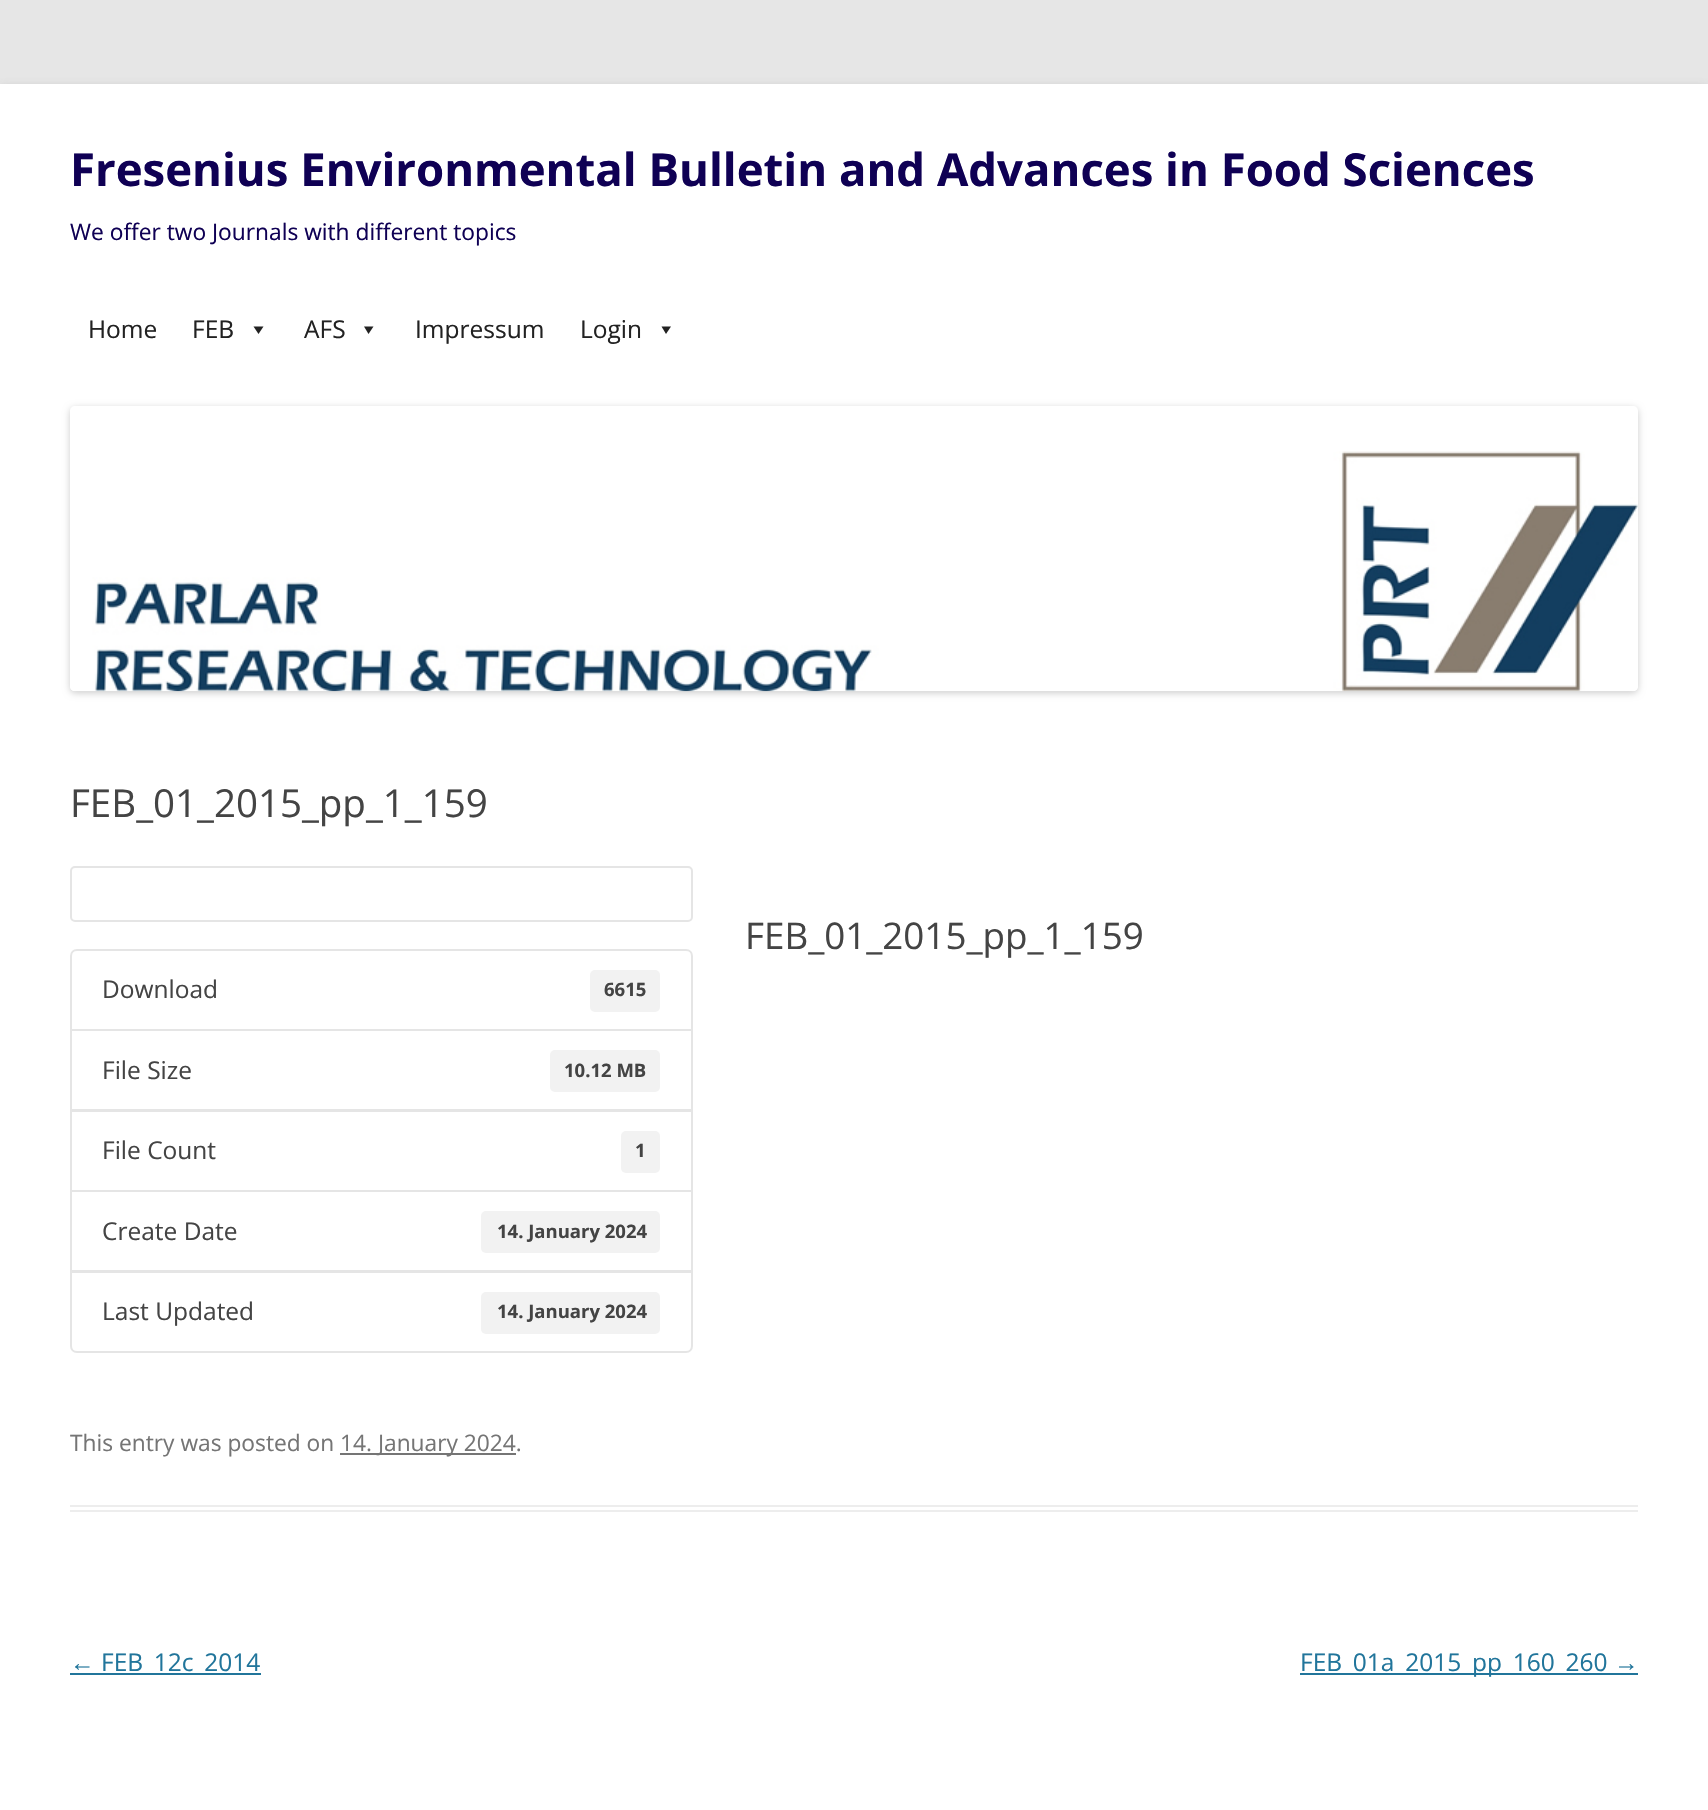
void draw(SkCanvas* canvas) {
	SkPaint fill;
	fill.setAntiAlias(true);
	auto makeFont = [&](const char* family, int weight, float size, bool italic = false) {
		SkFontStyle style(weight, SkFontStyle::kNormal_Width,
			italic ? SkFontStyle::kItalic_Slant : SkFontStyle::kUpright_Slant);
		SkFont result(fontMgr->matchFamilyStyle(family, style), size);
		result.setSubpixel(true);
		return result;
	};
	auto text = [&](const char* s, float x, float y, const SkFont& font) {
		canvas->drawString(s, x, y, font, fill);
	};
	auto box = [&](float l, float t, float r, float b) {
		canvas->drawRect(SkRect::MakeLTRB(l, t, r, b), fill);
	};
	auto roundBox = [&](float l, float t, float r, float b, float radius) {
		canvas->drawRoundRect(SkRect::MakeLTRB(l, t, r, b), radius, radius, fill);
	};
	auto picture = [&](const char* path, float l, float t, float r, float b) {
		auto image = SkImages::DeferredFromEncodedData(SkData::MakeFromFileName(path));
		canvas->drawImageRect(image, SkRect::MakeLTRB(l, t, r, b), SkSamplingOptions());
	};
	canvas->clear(0xFFE6E6E6);
	fill.setColor(0x4D646464);
	fill.setMaskFilter(SkMaskFilter::MakeBlur(kNormal_SkBlurStyle, 5));
	canvas->drawRect(SkRect::MakeLTRB(0, 88, 1708, 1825), fill);
	fill.setMaskFilter(nullptr);
	fill.setColor(0xFFFFFFFF);
	box(0, 84, 1708, 1810);
	fill.setColor(0xFF222222);
	canvas->drawPath(SkPathBuilder().moveTo(263.5f, 326.5f).lineTo(258.5f, 334).lineTo(253.5f, 326.5f).close().detach(), fill);
	canvas->drawPath(SkPathBuilder().moveTo(373.5f, 326.5f).lineTo(368.5f, 334).lineTo(364, 326.5f).close().detach(), fill);
	canvas->drawPath(SkPathBuilder().moveTo(671, 326.5f).lineTo(666, 334).lineTo(661.5f, 326.5f).close().detach(), fill);
	canvas->save();
	canvas->clipPath(SkPathBuilder(SkPathFillType::kEvenOdd).moveTo(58, 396).lineTo(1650, 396).lineTo(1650, 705).lineTo(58, 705).close().moveTo(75, 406).lineTo(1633, 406).cubicTo(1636, 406, 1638, 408, 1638, 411).lineTo(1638, 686).cubicTo(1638, 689, 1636, 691, 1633, 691).lineTo(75, 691).cubicTo(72, 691, 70, 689, 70, 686).lineTo(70, 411).cubicTo(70, 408, 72, 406, 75, 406).close().detach(), true);
	fill.setColor(0x33000000);
	fill.setMaskFilter(SkMaskFilter::MakeBlur(kNormal_SkBlurStyle, 3.5f));
	canvas->drawRoundRect(SkRect::MakeLTRB(70, 408, 1638, 693), 5, 5, fill);
	fill.setMaskFilter(nullptr);
	canvas->restore();
	picture("image0.png", 70, 451, 1638, 692);
	fill.setColor(0xFFEDEDED);
	box(70, 1505, 1638, 1507);
	box(70, 1510, 1638, 1512);
	fill.setStyle(SkPaint::kStroke_Style);
	fill.setStrokeWidth(2);
	fill.setColor(0xFFE5E5E5);
	canvas->drawRoundRect(SkRect::MakeLTRB(71, 867, 692, 921), 4, 4, fill);
	canvas->drawPath(SkPathBuilder().moveTo(77, 950).lineTo(686, 950).cubicTo(689.5f, 950, 692, 952.5f, 692, 956).lineTo(692, 1030).lineTo(71, 1030).lineTo(71, 956).cubicTo(71, 952.5f, 73.5f, 950, 77, 950).close().detach(), fill);
	fill.setStyle(SkPaint::kFill_Style);
	fill.setColor(0xFFF2F2F2);
	roundBox(590, 970, 660, 1012, 5);
	fill.setStyle(SkPaint::kStroke_Style);
	fill.setColor(0xFFE5E5E5);
	canvas->drawRect(SkRect::MakeLTRB(71, 1030, 692, 1110), fill);
	fill.setStyle(SkPaint::kFill_Style);
	fill.setColor(0xFFF2F2F2);
	roundBox(550, 1050, 660, 1092, 5);
	fill.setStyle(SkPaint::kStroke_Style);
	fill.setColor(0xFFE5E5E5);
	canvas->drawRect(SkRect::MakeLTRB(71, 1111, 692, 1191), fill);
	fill.setStyle(SkPaint::kFill_Style);
	fill.setColor(0xFFF2F2F2);
	roundBox(621, 1131, 660, 1173, 5);
	fill.setStyle(SkPaint::kStroke_Style);
	fill.setColor(0xFFE5E5E5);
	canvas->drawRect(SkRect::MakeLTRB(71, 1191, 692, 1271), fill);
	fill.setStyle(SkPaint::kFill_Style);
	fill.setColor(0xFFF2F2F2);
	roundBox(481, 1211, 660, 1253, 5);
	fill.setColor(0xFFFFFFFF);
	canvas->drawPath(SkPathBuilder().moveTo(71, 1272).lineTo(692, 1272).lineTo(692, 1346).cubicTo(692, 1349.5f, 689.5f, 1352, 686, 1352).lineTo(77, 1352).cubicTo(73.5f, 1352, 71, 1349.5f, 71, 1346).close().detach(), fill);
	fill.setStyle(SkPaint::kStroke_Style);
	fill.setColor(0xFFE5E5E5);
	canvas->drawPath(SkPathBuilder().moveTo(71, 1272).lineTo(692, 1272).lineTo(692, 1346).cubicTo(692, 1349.5f, 689.5f, 1352, 686, 1352).lineTo(77, 1352).cubicTo(73.5f, 1352, 71, 1349.5f, 71, 1346).close().detach(), fill);
	fill.setStyle(SkPaint::kFill_Style);
	fill.setColor(0xFFF2F2F2);
	roundBox(481, 1292, 660, 1334, 5);
	fill.setColor(0xFF757575);
	box(340, 1453, 516, 1455);
	fill.setColor(0xFF21759B);
	box(70, 1673, 261, 1675);
	box(1300, 1673, 1638, 1675);
	auto font1 = makeFont("Open Sans", 700, 45.5f);
	fill.setColor(0xFF0F0054);
	text("Fresenius Environmental Bulletin and Advances in Food Sciences", 70, 186, font1);
	auto font2 = makeFont("Open Sans", 400, 22.75f);
	text("We offer two Journals with different topics", 70, 240, font2);
	auto font3 = makeFont("Open Sans", 400, 24.5f);
	fill.setColor(0xFF222222);
	text("Home", 88, 338, font3);
	text("FEB", 192, 338, font3);
	text("AFS", 304, 338, font3);
	text("Impressum", 415, 338, font3);
	text("Login", 580, 338, font3);
	auto font4 = makeFont("Open Sans", 400, 38.5f);
	fill.setColor(0xFF444444);
	text("FEB_01_2015_pp_1_159", 70, 817, font4);
	auto font5 = makeFont("Open Sans", 400, 36.75f);
	text("FEB_01_2015_pp_1_159", 745, 949, font5);
	text("Download", 102, 998, font3);
	auto font6 = makeFont("Open Sans", 700, 18.5f);
	text("6615", 604, 996, font6);
	text("File Size", 102, 1079, font3);
	text("10.12 MB", 564, 1077, font6);
	text("File Count", 102, 1159, font3);
	text("1", 635, 1157, font6);
	text("Create Date", 102, 1240, font3);
	text("14. January 2024", 497, 1238, font6);
	text("Last Updated", 102, 1320, font3);
	text("14. January 2024", 497, 1318, font6);
	fill.setColor(0xFF757575);
	text("This entry was posted on", 70, 1451, font2);
	text("14. January 2024.", 340, 1451, font2);
	auto font7 = makeFont("Liberation Sans", 400, 24.5f);
	fill.setColor(0xFF21759B);
	text("←", 70, 1671, font7);
	text("FEB_12c_2014", 101, 1671, font3);
	text("FEB_01a_2015_pp_160_260", 1300, 1671, font3);
	text("→", 1614, 1671, font7);
}
